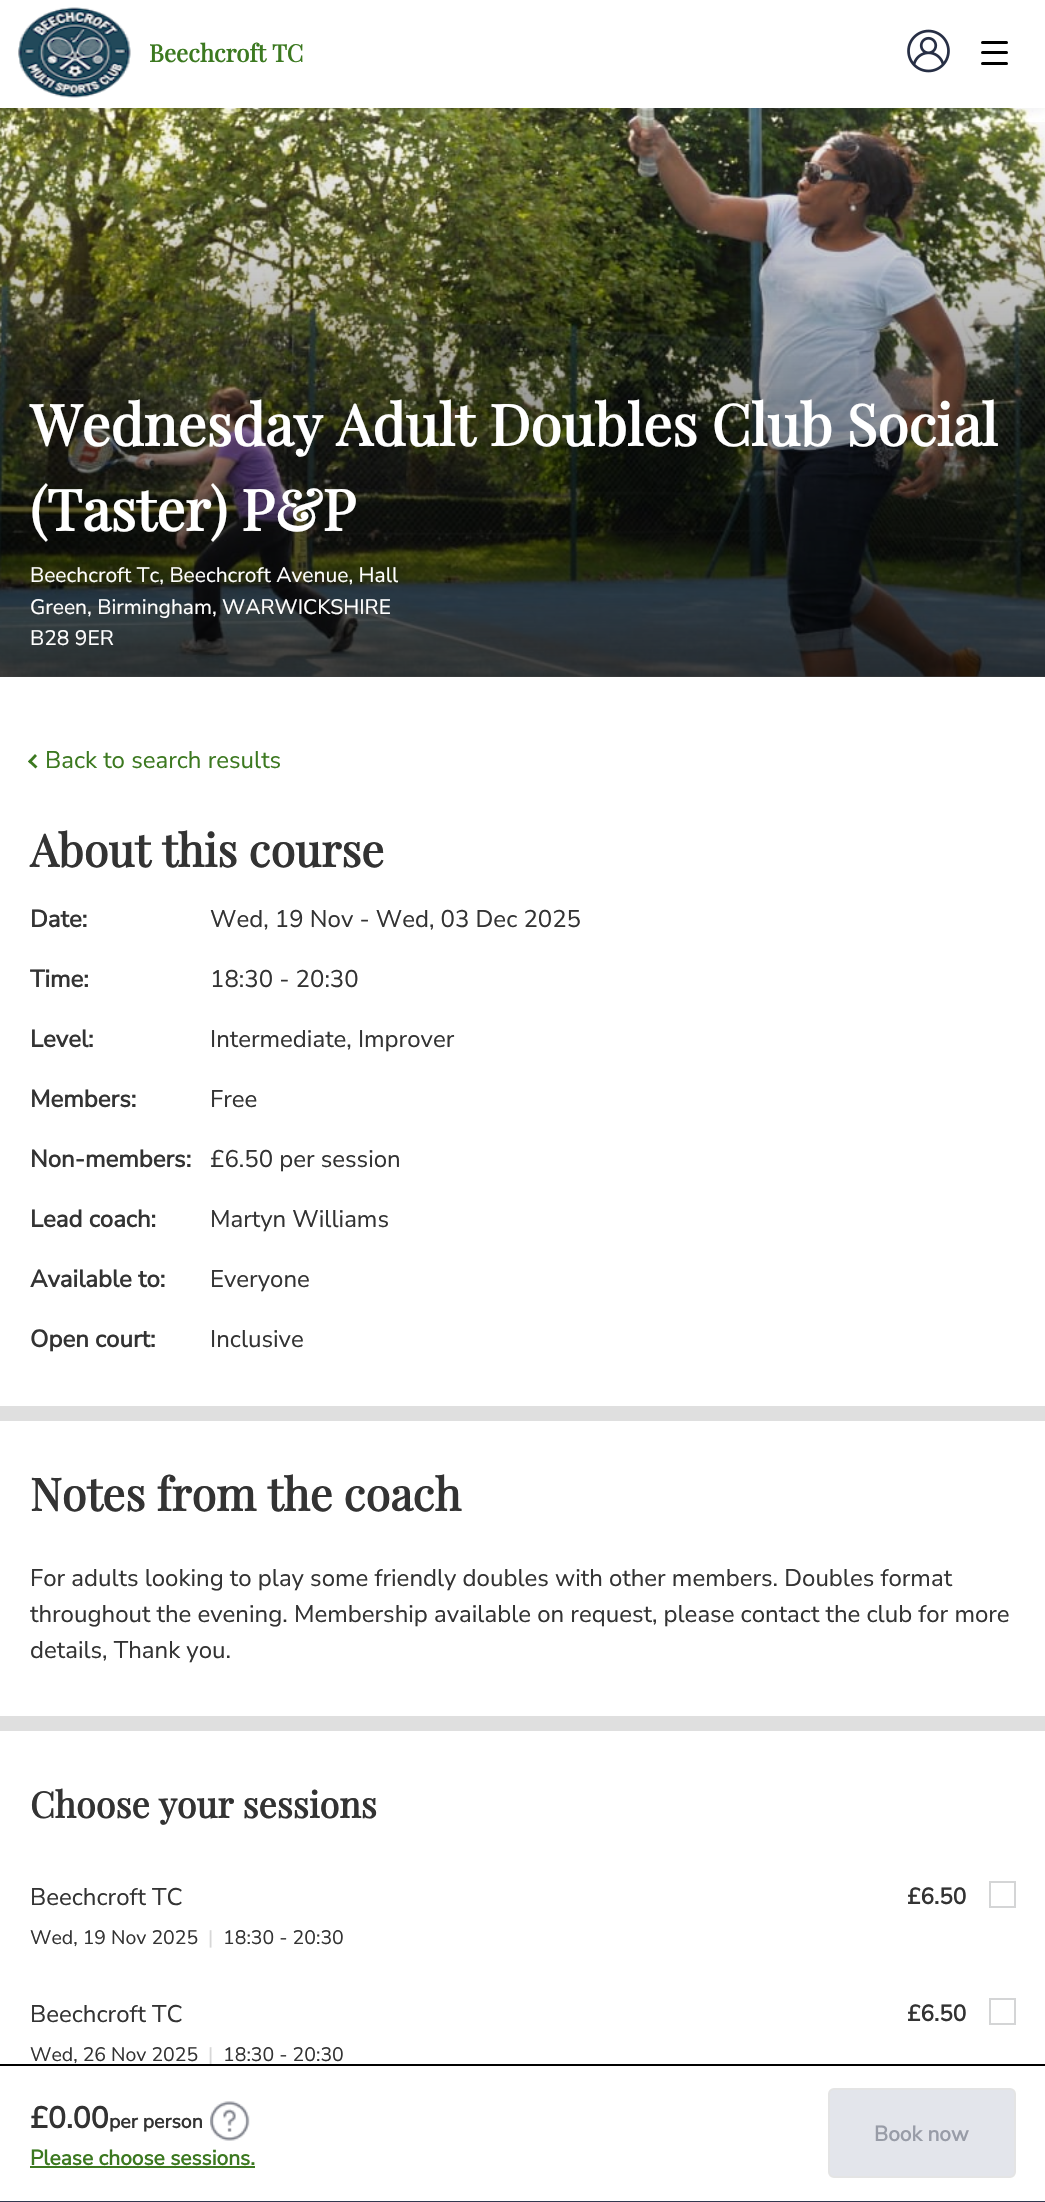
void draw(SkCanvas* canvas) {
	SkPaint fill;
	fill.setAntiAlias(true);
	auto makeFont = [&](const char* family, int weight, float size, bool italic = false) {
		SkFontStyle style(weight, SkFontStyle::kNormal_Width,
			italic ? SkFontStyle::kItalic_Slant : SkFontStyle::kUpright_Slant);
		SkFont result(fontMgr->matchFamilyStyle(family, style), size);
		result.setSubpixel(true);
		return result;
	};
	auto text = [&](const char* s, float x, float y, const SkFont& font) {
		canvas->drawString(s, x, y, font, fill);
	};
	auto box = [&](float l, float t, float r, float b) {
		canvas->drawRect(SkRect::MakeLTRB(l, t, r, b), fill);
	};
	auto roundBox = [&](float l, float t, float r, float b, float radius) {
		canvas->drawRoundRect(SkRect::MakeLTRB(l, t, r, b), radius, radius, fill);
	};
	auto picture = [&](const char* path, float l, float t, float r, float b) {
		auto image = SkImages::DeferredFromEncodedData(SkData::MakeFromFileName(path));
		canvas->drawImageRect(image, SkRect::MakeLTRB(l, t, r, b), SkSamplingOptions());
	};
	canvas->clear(0xFFFFFFFF);
	picture("image2.png", 0, 108, 1045, 677);
	{
		const SkColor colors[] = {0x00000000, 0xBF000000};
		const float stops[] = {0, 1};
		const SkPoint ends[] = {{523, 106}, {523, 677}};
		fill.setShader(SkGradientShader::MakeLinear(ends, colors, stops, 2, SkTileMode::kClamp));
		fill.setAlpha(255);
	}
	box(0, 122, 1045, 677);
	fill.setShader(nullptr);
	fill.setColor(0x0F141D37);
	fill.setMaskFilter(SkMaskFilter::MakeBlur(kNormal_SkBlurStyle, 4.5f));
	canvas->drawRect(SkRect::MakeLTRB(0, 3, 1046, 111), fill);
	fill.setMaskFilter(nullptr);
	fill.setColor(0xFFFFFFFF);
	box(0, 0, 1045, 108);
	picture("image0.png", 18, 7, 131, 98);
	picture("image1.png", 907, 29, 950, 73);
	fill.setColor(0xFF000000);
	roundBox(981, 41, 1008, 44, 1.5f);
	roundBox(981, 51, 1008, 54, 1.5f);
	roundBox(981, 62, 1008, 65, 1.5f);
	fill.setColor(0xFF3C7920);
	canvas->drawPath(SkPathBuilder().moveTo(37.5f, 766.5f).lineTo(35.5f, 768.5f).lineTo(28, 761.5f).lineTo(30, 759.5f).close().detach(), fill);
	canvas->drawPath(SkPathBuilder().moveTo(37, 756).lineTo(30, 763.5f).lineTo(28, 761.5f).lineTo(35, 754).close().detach(), fill);
	fill.setColor(0xFFDFDFDF);
	box(0, 1406, 1045, 1421);
	box(0, 1716, 1045, 1731);
	fill.setStyle(SkPaint::kStroke_Style);
	fill.setStrokeWidth(2);
	fill.setColor(0xFFD4D5D6);
	canvas->drawRect(SkRect::MakeLTRB(990, 1882, 1015, 1907), fill);
	canvas->drawRect(SkRect::MakeLTRB(990, 1999, 1015, 2024), fill);
	fill.setStyle(SkPaint::kFill_Style);
	fill.setColor(0xFF323950);
	box(0, 2201, 1045, 2202);
	picture("image3.png", 210, 2101, 250, 2141);
	fill.setColor(0xFF3C7920);
	box(30, 2166, 255, 2168);
	fill.setColor(0xFFE3E5EB);
	canvas->drawRoundRect(SkRect::MakeLTRB(829, 2089, 1015, 2177), 5, 5, fill);
	fill.setStyle(SkPaint::kStroke_Style);
	fill.setColor(0xFFE4E4E4);
	canvas->drawRoundRect(SkRect::MakeLTRB(829, 2089, 1015, 2177), 5, 5, fill);
	auto font1 = makeFont("Playfair Display", 700, 24);
	fill.setStyle(SkPaint::kFill_Style);
	fill.setColor(0xFF3C7920);
	text("Beechcroft TC", 149, 62, font1);
	auto font2 = makeFont("Playfair Display", 700, 57);
	fill.setColor(0xFFFFFFFF);
	text("Wednesday Adult Doubles Club Social", 30, 446, font2);
	text("(Taster) P&P", 30, 531, font2);
	auto font3 = makeFont("Nunito Sans", 200, 21);
	text("Beechcroft Tc, Beechcroft Avenue, Hall", 30, 582, font3);
	text("Green, Birmingham, WARWICKSHIRE", 30, 614, font3);
	text("B28 9ER", 30, 645, font3);
	auto font4 = makeFont("Nunito Sans", 200, 24);
	fill.setColor(0xFF3C7920);
	text("Back to search results", 45, 768, font4);
	auto font5 = makeFont("Playfair Display", 700, 45);
	fill.setColor(0xFF333333);
	text("About this course", 30, 867, font5);
	auto font6 = makeFont("Nunito Sans", 700, 24);
	text("Date:", 30, 927, font6);
	text("Wed, 19 Nov - Wed, 03 Dec 2025", 210, 927, font4);
	text("Time:", 30, 987, font6);
	text("18:30 - 20:30", 210, 987, font4);
	text("Level:", 30, 1047, font6);
	text("Intermediate, Improver", 210, 1047, font4);
	text("Members:", 30, 1107, font6);
	text("Free", 210, 1107, font4);
	text("Non-members:", 30, 1167, font6);
	text("£6.50 per session", 210, 1167, font4);
	text("Lead coach:", 30, 1227, font6);
	text("Martyn Williams", 210, 1227, font4);
	text("Available to:", 30, 1287, font6);
	text("Everyone", 210, 1287, font4);
	text("Open court:", 30, 1347, font6);
	text("Inclusive", 210, 1347, font4);
	text("Notes from the coach", 30, 1511, font5);
	text("For adults looking to play some friendly doubles with other members. Doubles format", 30, 1586, font4);
	text("throughout the evening. Membership available on request, please contact the club for more", 30, 1622, font4);
	text("details, Thank you.", 30, 1658, font4);
	auto font7 = makeFont("Playfair Display", 700, 36);
	text("Choose your sessions", 30, 1818, font7);
	text("Beechcroft TC", 30, 1905, font4);
	auto font8 = makeFont("Nunito Sans", 200, 19.5f);
	text("Wed, 19 Nov 2025", 30, 1944, font8);
	fill.setColor(0xFFD7D7D7);
	text("|", 208, 1944, font8);
	fill.setColor(0xFF333333);
	text("18:30 - 20:30", 223, 1944, font8);
	auto font9 = makeFont("Nunito Sans", 700, 22.5f);
	text("£6.50", 907, 1904, font9);
	text("Beechcroft TC", 30, 2022, font4);
	text("Wed, 26 Nov 2025", 30, 2061, font8);
	fill.setColor(0xFFD7D7D7);
	text("|", 208, 2061, font8);
	fill.setColor(0xFF333333);
	text("18:30 - 20:30", 223, 2061, font8);
	text("£6.50", 907, 2021, font9);
	fill.setColor(0xFF000000);
	box(0, 2064, 1045, 2066);
	auto font10 = makeFont("Nunito Sans", 700, 30);
	fill.setColor(0xFF333333);
	text("£0.00", 30, 2128, font10);
	auto font11 = makeFont("Nunito Sans", 700, 19.5f);
	text("per person", 109, 2128, font11);
	auto font12 = makeFont("Nunito Sans", 700, 21);
	fill.setColor(0xFF3C7920);
	text("Please choose sessions.", 30, 2165, font12);
	fill.setColor(0xFF989CA7);
	text("Book now", 874, 2141, font12);
}
